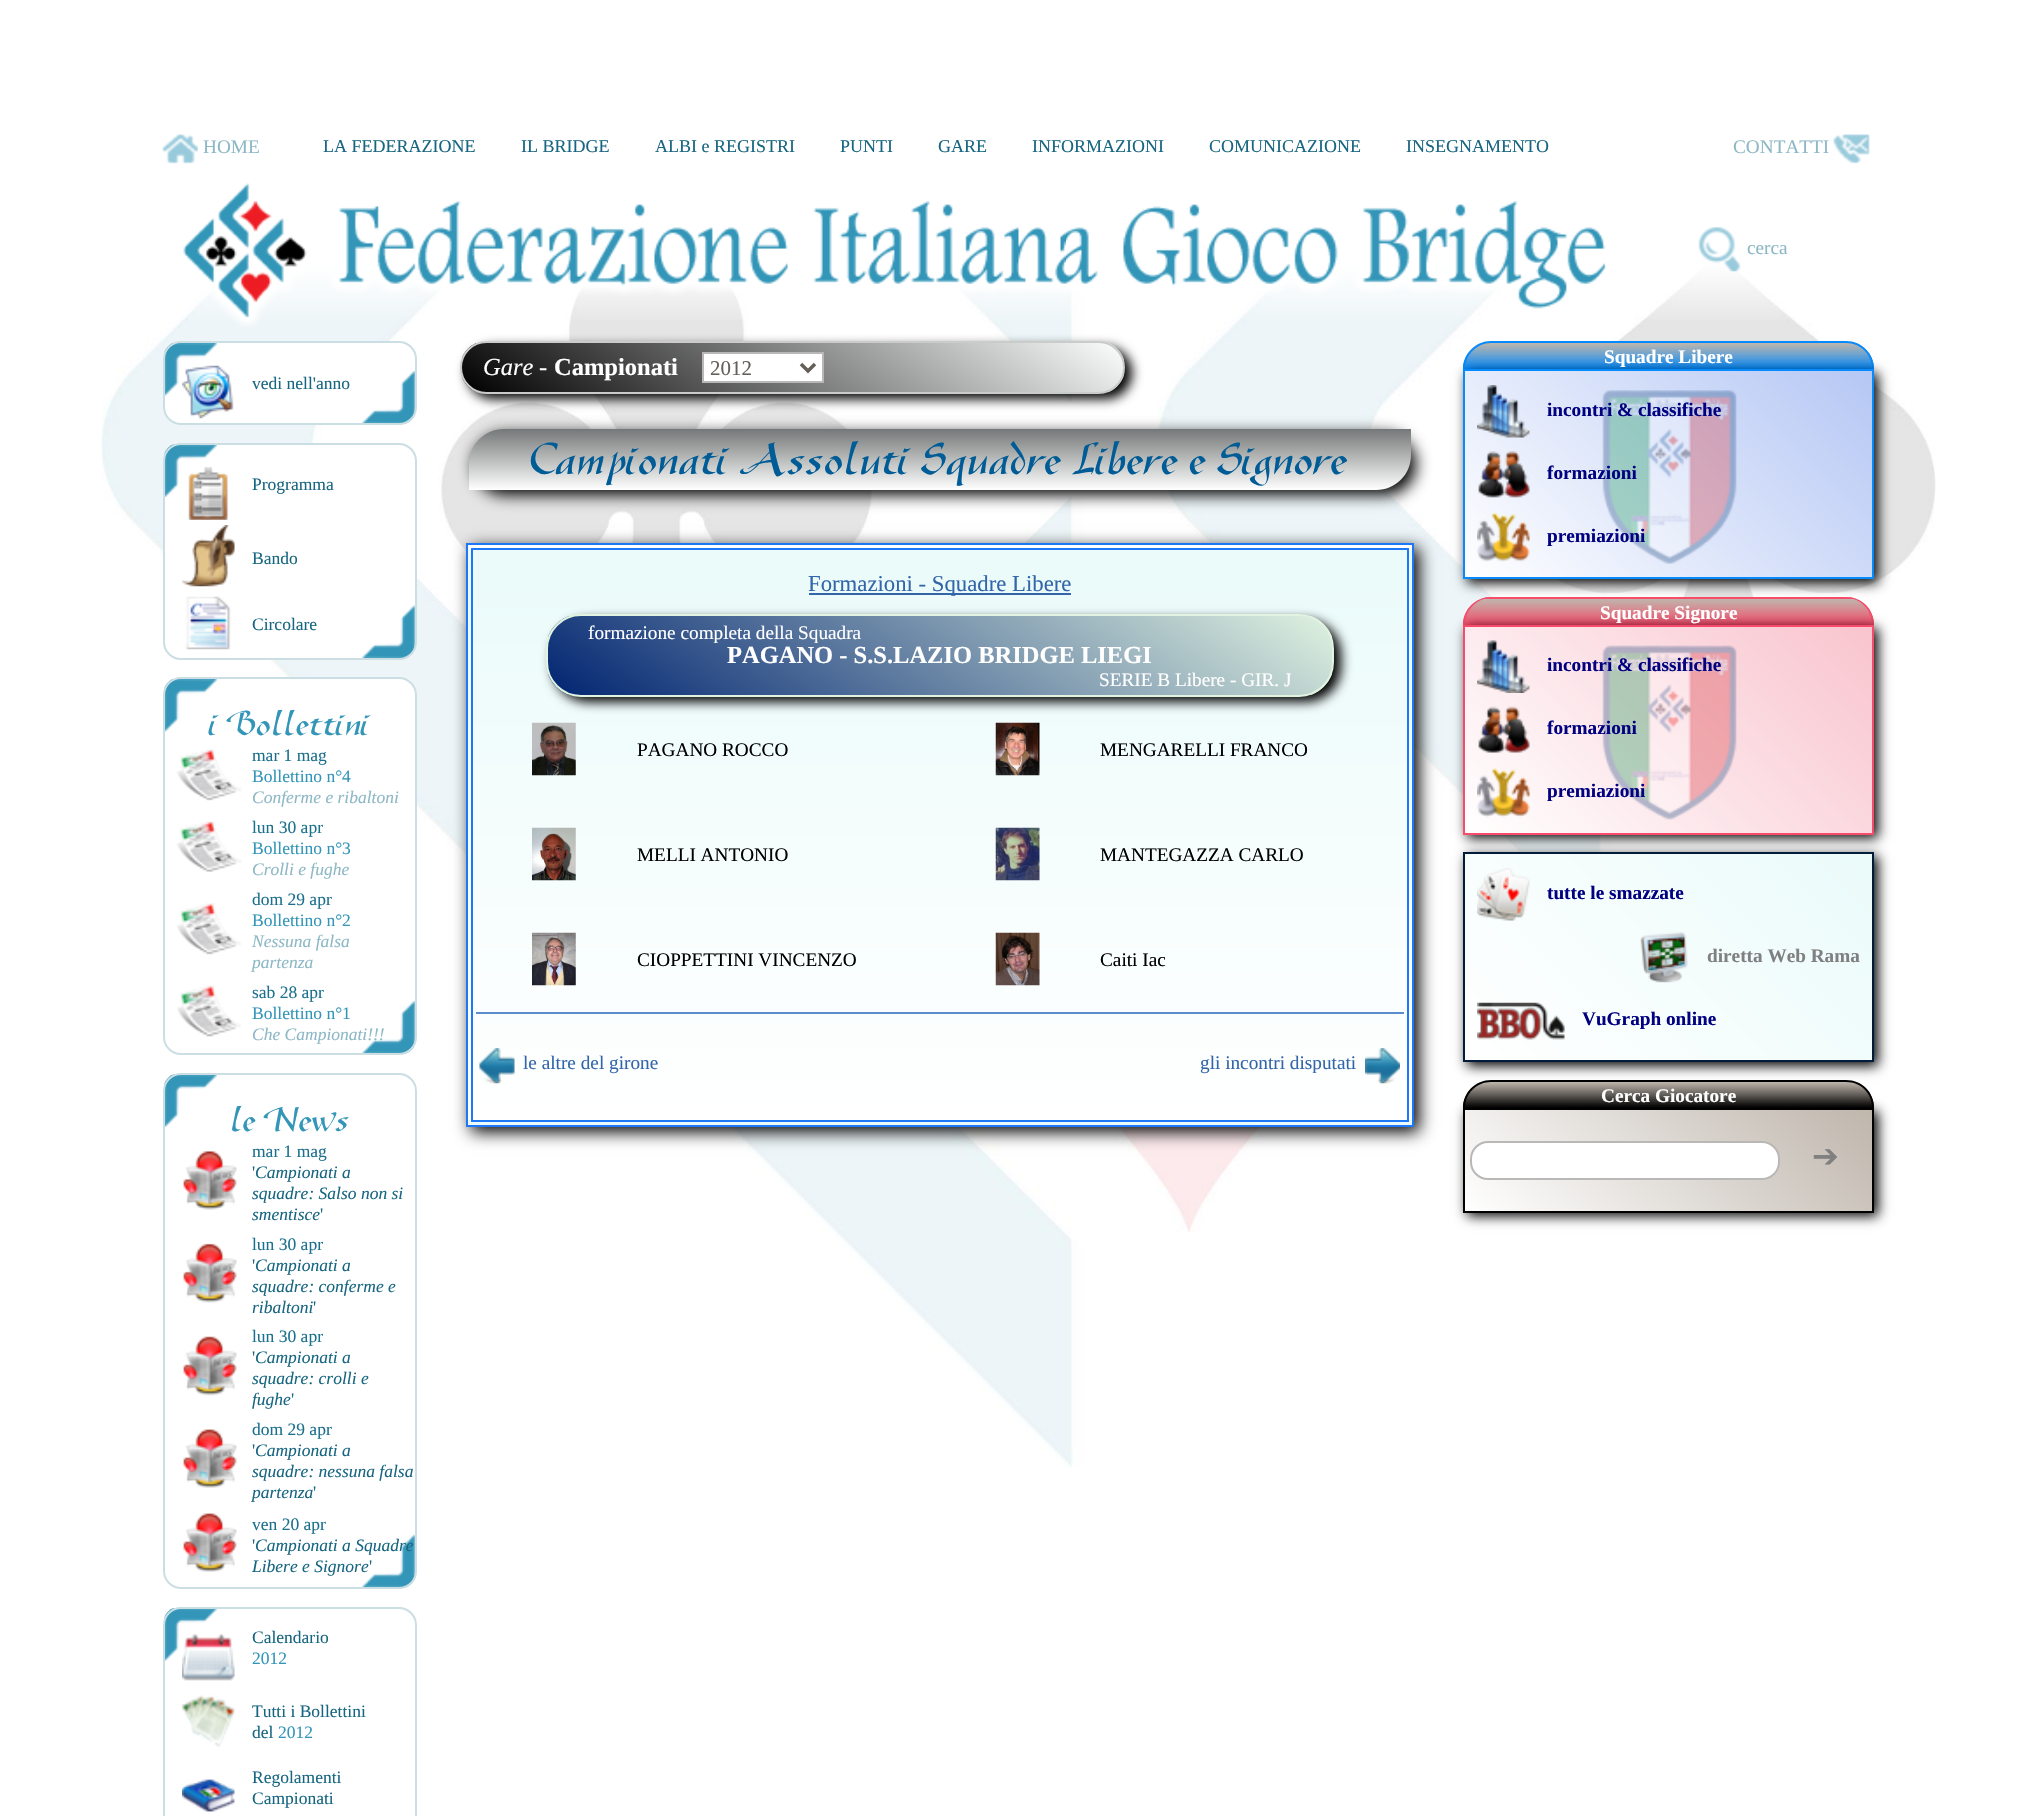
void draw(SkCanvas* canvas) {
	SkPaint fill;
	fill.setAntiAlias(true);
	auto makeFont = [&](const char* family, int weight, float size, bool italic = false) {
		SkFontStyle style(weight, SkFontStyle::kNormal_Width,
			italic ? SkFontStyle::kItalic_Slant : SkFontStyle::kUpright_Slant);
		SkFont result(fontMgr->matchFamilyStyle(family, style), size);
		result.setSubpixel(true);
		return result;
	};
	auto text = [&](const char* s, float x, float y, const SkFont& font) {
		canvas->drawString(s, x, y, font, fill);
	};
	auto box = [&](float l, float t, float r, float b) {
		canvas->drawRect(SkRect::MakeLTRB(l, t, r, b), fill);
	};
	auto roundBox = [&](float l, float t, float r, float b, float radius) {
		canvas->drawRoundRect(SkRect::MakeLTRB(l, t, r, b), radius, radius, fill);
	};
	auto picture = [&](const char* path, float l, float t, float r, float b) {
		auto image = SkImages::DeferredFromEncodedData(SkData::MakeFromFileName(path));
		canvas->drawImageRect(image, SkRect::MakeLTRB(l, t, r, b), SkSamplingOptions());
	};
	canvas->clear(0xFFFFFFFF);
	picture("image0.png", 101, 261, 1936, 1467);
	{
		const SkColor colors[] = {0x00FFFFFF, 0xFFFFFFFF};
		const float stops[] = {0, 0.2f};
		const SkPoint ends[] = {{1019, 326}, {1019, 0}};
		fill.setShader(SkGradientShader::MakeLinear(ends, colors, stops, 2, SkTileMode::kClamp));
		fill.setAlpha(255);
	}
	box(188, 261, 1791, 320);
	picture("image1.png", 162, 134, 198, 164);
	picture("image2.png", 1833, 134, 1870, 164);
	picture("image3.png", 183, 183, 1606, 327);
	picture("image4.png", 1698, 227, 1741, 272);
	fill.setShader(nullptr);
	fill.setColor(0xFFFFFFFF);
	roundBox(163, 341, 417, 425, 18);
	picture("image5.png", 164, 343, 415, 424);
	fill.setStyle(SkPaint::kStroke_Style);
	fill.setStrokeWidth(2);
	fill.setColor(0xFFCBDEE4);
	canvas->drawRoundRect(SkRect::MakeLTRB(164, 342, 416, 424), 17, 17, fill);
	picture("image6.png", 182, 365, 234, 419);
	fill.setStyle(SkPaint::kFill_Style);
	fill.setColor(0xFFFFFFFF);
	roundBox(163, 443, 417, 660, 18);
	picture("image7.png", 164, 444, 415, 658);
	fill.setStyle(SkPaint::kStroke_Style);
	fill.setColor(0xFFCBDEE4);
	canvas->drawRoundRect(SkRect::MakeLTRB(164, 444, 416, 659), 17, 17, fill);
	picture("image8.png", 188, 467, 228, 520);
	picture("image9.png", 182, 525, 235, 587);
	picture("image10.png", 185, 596, 231, 650);
	fill.setStyle(SkPaint::kFill_Style);
	fill.setColor(0xFFFFFFFF);
	roundBox(163, 677, 417, 1055, 18);
	picture("image11.png", 164, 679, 415, 1054);
	fill.setStyle(SkPaint::kStroke_Style);
	fill.setColor(0xFFCBDEE4);
	canvas->drawRoundRect(SkRect::MakeLTRB(164, 678, 416, 1054), 17, 17, fill);
	picture("image12.png", 176, 749, 242, 801);
	picture("image13.png", 176, 821, 242, 872);
	picture("image12.png", 176, 903, 242, 955);
	picture("image14.png", 177, 985, 241, 1037);
	picture("image15.png", 164, 1074, 415, 1588);
	canvas->drawRoundRect(SkRect::MakeLTRB(164, 1074, 416, 1588), 17, 17, fill);
	picture("image16.png", 183, 1151, 237, 1210);
	picture("image17.png", 183, 1243, 237, 1303);
	picture("image18.png", 183, 1336, 237, 1396);
	picture("image19.png", 183, 1429, 237, 1488);
	picture("image19.png", 183, 1513, 237, 1572);
	picture("image20.png", 164, 1608, 217, 1661);
	canvas->drawRoundRect(SkRect::MakeLTRB(164, 1608, 416, 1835), 17, 17, fill);
	picture("image21.png", 182, 1634, 235, 1681);
	picture("image22.png", 182, 1695, 235, 1747);
	picture("image23.png", 182, 1779, 235, 1812);
	fill.setStyle(SkPaint::kFill_Style);
	fill.setColor(0xFF000000);
	fill.setMaskFilter(SkMaskFilter::MakeBlur(kNormal_SkBlurStyle, 6));
	canvas->drawRoundRect(SkRect::MakeLTRB(467, 347, 1132, 399), 26, 26, fill);
	fill.setMaskFilter(nullptr);
	canvas->save();
	canvas->clipPath(SkPathBuilder().moveTo(486.5f, 341).lineTo(1098.5f, 341).cubicTo(1113, 341, 1125, 353, 1125, 367.5f).cubicTo(1125, 382, 1113, 394, 1098.5f, 394).lineTo(486.5f, 394).cubicTo(472, 394, 460, 382, 460, 367.5f).cubicTo(460, 353, 472, 341, 486.5f, 341).close().detach(), true);
	{
		const SkColor colors[] = {0xFF000000, 0xFFFCFDFD};
		const float stops[] = {0, 1};
		const SkPoint ends[] = {{672, 539}, {913, 196}};
		fill.setShader(SkGradientShader::MakeLinear(ends, colors, stops, 2, SkTileMode::kClamp));
		fill.setAlpha(255);
	}
	box(462, 343, 1124, 392);
	canvas->restore();
	fill.setStyle(SkPaint::kStroke_Style);
	fill.setShader(nullptr);
	fill.setColor(0xFFCACCCC);
	canvas->drawRoundRect(SkRect::MakeLTRB(461, 342, 1124, 393), 25.5f, 25.5f, fill);
	fill.setStyle(SkPaint::kFill_Style);
	fill.setColor(0xFFFFFFFF);
	canvas->drawRect(SkRect::MakeLTRB(703, 353, 823, 382), fill);
	fill.setStyle(SkPaint::kStroke_Style);
	fill.setColor(0xFFBAB8B6);
	canvas->drawRect(SkRect::MakeLTRB(703, 353, 823, 382), fill);
	fill.setStrokeWidth(3.5f);
	fill.setColor(0xFF646059);
	canvas->drawPath(SkPathBuilder().moveTo(801, 364).lineTo(808, 371).lineTo(815, 364).detach(), fill);
	fill.setStyle(SkPaint::kFill_Style);
	fill.setColor(0xFF000000);
	fill.setMaskFilter(SkMaskFilter::MakeBlur(kNormal_SkBlurStyle, 8));
	canvas->drawRoundRect(SkRect::MakeLTRB(474, 434, 1416, 495), 35, 35, fill);
	fill.setMaskFilter(nullptr);
	{
		const SkColor colors[] = {0xFFFFFFFF, 0xFF757878};
		const float stops[] = {0, 1};
		const SkPoint ends[] = {{940, 490}, {940, 429}};
		fill.setShader(SkGradientShader::MakeLinear(ends, colors, stops, 2, SkTileMode::kClamp));
		fill.setAlpha(255);
	}
	canvas->drawPath(SkPathBuilder().moveTo(504, 429).lineTo(1411, 429).lineTo(1411, 455).cubicTo(1411, 474.5f, 1395.5f, 490, 1376, 490).lineTo(469, 490).lineTo(469, 464).cubicTo(469, 444.5f, 484.5f, 429, 504, 429).close().detach(), fill);
	fill.setShader(nullptr);
	fill.setColor(0xFF000000);
	fill.setMaskFilter(SkMaskFilter::MakeBlur(kNormal_SkBlurStyle, 8));
	canvas->drawRect(SkRect::MakeLTRB(471, 548, 1419, 1132), fill);
	fill.setMaskFilter(nullptr);
	{
		const SkColor colors[] = {0xFFFFFFFF, 0xFFEAFBFA};
		const float stops[] = {0, 1};
		const SkPoint ends[] = {{940, 550}, {940, -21}};
		fill.setShader(SkGradientShader::MakeLinear(ends, colors, stops, 2, SkTileMode::kClamp));
		fill.setAlpha(255);
	}
	box(466, 545, 1414, 550);
	{
		const SkColor colors[] = {0xFFFFFFFF, 0xFFEAFBFA};
		const float stops[] = {0, 1};
		const SkPoint ends[] = {{940, 1120}, {940, 550}};
		fill.setShader(SkGradientShader::MakeLinear(ends, colors, stops, 2, SkTileMode::kClamp));
		fill.setAlpha(255);
	}
	box(468, 550, 1412, 1120);
	{
		const SkColor colors[] = {0xFFFFFFFF, 0xFFEAFBFA};
		const float stops[] = {0, 1};
		const SkPoint ends[] = {{940, 1691}, {940, 1120}};
		fill.setShader(SkGradientShader::MakeLinear(ends, colors, stops, 2, SkTileMode::kClamp));
		fill.setAlpha(255);
	}
	box(466, 1120, 1414, 1125);
	fill.setStyle(SkPaint::kStroke_Style);
	fill.setStrokeWidth(2);
	fill.setShader(nullptr);
	fill.setColor(0xFF1C78F6);
	canvas->drawRect(SkRect::MakeLTRB(467, 544, 1413, 1126), fill);
	canvas->drawRect(SkRect::MakeLTRB(472, 549, 1408, 1121), fill);
	fill.setStyle(SkPaint::kFill_Style);
	fill.setColor(0xFF3265AA);
	box(809, 593, 1071, 595);
	fill.setColor(0xFF000000);
	fill.setMaskFilter(SkMaskFilter::MakeBlur(kNormal_SkBlurStyle, 6));
	canvas->drawRoundRect(SkRect::MakeLTRB(553, 620, 1341, 702), 35, 35, fill);
	fill.setMaskFilter(nullptr);
	canvas->save();
	canvas->clipPath(SkPathBuilder().moveTo(581, 614).lineTo(1299, 614).cubicTo(1318.5f, 614, 1334, 629.5f, 1334, 649).lineTo(1334, 662).cubicTo(1334, 681.5f, 1318.5f, 697, 1299, 697).lineTo(581, 697).cubicTo(561.5f, 697, 546, 681.5f, 546, 662).lineTo(546, 649).cubicTo(546, 629.5f, 561.5f, 614, 581, 614).close().detach(), true);
	{
		const SkColor colors[] = {0xFF002471, 0xFFDFF2E0};
		const float stops[] = {0, 1};
		const SkPoint ends[] = {{792, 866}, {1087, 445}};
		fill.setShader(SkGradientShader::MakeLinear(ends, colors, stops, 2, SkTileMode::kClamp));
		fill.setAlpha(255);
	}
	box(548, 616, 1332, 695);
	canvas->restore();
	fill.setStyle(SkPaint::kStroke_Style);
	fill.setShader(nullptr);
	fill.setColor(0xFFE1F4E1);
	canvas->drawRoundRect(SkRect::MakeLTRB(547, 615, 1333, 696), 34, 34, fill);
	picture("image24.png", 532, 722, 576, 776);
	picture("image25.png", 995, 722, 1040, 776);
	picture("image26.png", 532, 827, 576, 881);
	picture("image27.png", 995, 827, 1040, 881);
	picture("image28.png", 532, 932, 576, 986);
	picture("image29.png", 995, 932, 1040, 986);
	fill.setStyle(SkPaint::kFill_Style);
	fill.setColor(0xFF5D8DCF);
	box(476, 1012, 1404, 1014);
	picture("image30.png", 479, 1048, 515, 1084);
	picture("image31.png", 1365, 1048, 1400, 1084);
	canvas->save();
	canvas->clipPath(SkPathBuilder().moveTo(1491, 341).lineTo(1846, 341).cubicTo(1861.5f, 341, 1874, 353.5f, 1874, 369).lineTo(1463, 369).cubicTo(1463, 353.5f, 1475.5f, 341, 1491, 341).close().detach(), true);
	{
		const SkColor colors[] = {0xFF058BFD, 0xFFBFB6AC};
		const float stops[] = {0, 1};
		const SkPoint ends[] = {{1669, 369}, {1669, 343}};
		fill.setShader(SkGradientShader::MakeLinear(ends, colors, stops, 2, SkTileMode::kClamp));
		fill.setAlpha(255);
	}
	box(1463, 343, 1874, 369);
	canvas->restore();
	fill.setShader(nullptr);
	fill.setColor(0xFF058BFD);
	canvas->drawPath(SkPathBuilder(SkPathFillType::kEvenOdd).moveTo(1491, 341).lineTo(1846, 341).cubicTo(1862, 341, 1874, 354, 1874, 369).lineTo(1463, 369).cubicTo(1463, 354, 1476, 341, 1491, 341).close().moveTo(1491, 343).lineTo(1846, 343).cubicTo(1861, 343, 1872, 355, 1872, 369).lineTo(1465, 369).cubicTo(1465, 355, 1477, 343, 1491, 343).close().detach(), fill);
	fill.setColor(0xFF000000);
	fill.setMaskFilter(SkMaskFilter::MakeBlur(kNormal_SkBlurStyle, 6));
	canvas->drawRect(SkRect::MakeLTRB(1467, 373, 1878, 583), fill);
	fill.setMaskFilter(nullptr);
	{
		const SkColor colors[] = {0xFFFFFFFF, 0xFFB5C7F4};
		const float stops[] = {0, 1};
		const SkPoint ends[] = {{1515, 628}, {1822, 321}};
		fill.setShader(SkGradientShader::MakeLinear(ends, colors, stops, 2, SkTileMode::kClamp));
		fill.setAlpha(255);
	}
	box(1465, 371, 1872, 577);
	fill.setStyle(SkPaint::kStroke_Style);
	fill.setShader(nullptr);
	fill.setColor(0xFF058BFD);
	canvas->drawRect(SkRect::MakeLTRB(1464, 370, 1873, 578), fill);
	picture("image32.png", 1602, 390, 1737, 564);
	picture("image33.png", 1477, 385, 1530, 438);
	picture("image34.png", 1478, 451, 1530, 498);
	picture("image35.png", 1477, 512, 1530, 562);
	canvas->save();
	canvas->clipPath(SkPathBuilder().moveTo(1491, 597).lineTo(1846, 597).cubicTo(1861.5f, 597, 1874, 609.5f, 1874, 625).lineTo(1463, 625).cubicTo(1463, 609.5f, 1475.5f, 597, 1491, 597).close().detach(), true);
	fill.setStyle(SkPaint::kFill_Style);
	{
		const SkColor colors[] = {0xFFF84B6B, 0xFFBFB6AC};
		const float stops[] = {0, 1};
		const SkPoint ends[] = {{1669, 599}, {1669, 572}};
		fill.setShader(SkGradientShader::MakeLinear(ends, colors, stops, 2, SkTileMode::kClamp));
		fill.setAlpha(255);
	}
	box(1480, 597, 1857, 599);
	{
		const SkColor colors[] = {0xFFF84B6B, 0xFFBFB6AC};
		const float stops[] = {0, 1};
		const SkPoint ends[] = {{1669, 625}, {1669, 599}};
		fill.setShader(SkGradientShader::MakeLinear(ends, colors, stops, 2, SkTileMode::kClamp));
		fill.setAlpha(255);
	}
	box(1463, 599, 1874, 625);
	canvas->restore();
	fill.setShader(nullptr);
	fill.setColor(0xFFF84B6B);
	canvas->drawPath(SkPathBuilder(SkPathFillType::kEvenOdd).moveTo(1491, 597).lineTo(1846, 597).cubicTo(1862, 597, 1874, 609, 1874, 625).lineTo(1463, 625).cubicTo(1463, 609, 1476, 597, 1491, 597).close().moveTo(1491, 598).lineTo(1846, 598).cubicTo(1861, 598, 1872, 610, 1872, 625).lineTo(1465, 625).cubicTo(1465, 610, 1477, 598, 1491, 598).close().detach(), fill);
	fill.setColor(0xFF000000);
	fill.setMaskFilter(SkMaskFilter::MakeBlur(kNormal_SkBlurStyle, 6));
	canvas->drawRect(SkRect::MakeLTRB(1467, 628, 1878, 838), fill);
	fill.setMaskFilter(nullptr);
	{
		const SkColor colors[] = {0xFFFFFFFF, 0xFFF9C4CE};
		const float stops[] = {0, 1};
		const SkPoint ends[] = {{1515, 883}, {1822, 576}};
		fill.setShader(SkGradientShader::MakeLinear(ends, colors, stops, 2, SkTileMode::kClamp));
		fill.setAlpha(255);
	}
	box(1465, 627, 1872, 833);
	fill.setStyle(SkPaint::kStroke_Style);
	fill.setShader(nullptr);
	fill.setColor(0xFFF84B6B);
	canvas->drawRect(SkRect::MakeLTRB(1464, 626, 1873, 834), fill);
	picture("image36.png", 1602, 645, 1737, 820);
	picture("image37.png", 1477, 640, 1530, 693);
	picture("image38.png", 1478, 706, 1530, 753);
	picture("image39.png", 1477, 768, 1530, 818);
	fill.setStyle(SkPaint::kFill_Style);
	fill.setColor(0xFF000000);
	fill.setMaskFilter(SkMaskFilter::MakeBlur(kNormal_SkBlurStyle, 6));
	canvas->drawRect(SkRect::MakeLTRB(1467, 856, 1878, 1066), fill);
	fill.setMaskFilter(nullptr);
	{
		const SkColor colors[] = {0xFFFFFFFF, 0xFFEAFBFA};
		const float stops[] = {0, 1};
		const SkPoint ends[] = {{1515, 1111}, {1822, 804}};
		fill.setShader(SkGradientShader::MakeLinear(ends, colors, stops, 2, SkTileMode::kClamp));
		fill.setAlpha(255);
	}
	box(1465, 854, 1872, 1060);
	fill.setStyle(SkPaint::kStroke_Style);
	fill.setShader(nullptr);
	fill.setColor(0xFF011C3A);
	canvas->drawRect(SkRect::MakeLTRB(1464, 853, 1873, 1061), fill);
	picture("image40.png", 1477, 868, 1530, 921);
	picture("image41.png", 1640, 932, 1688, 983);
	picture("image42.png", 1477, 1002, 1565, 1040);
	canvas->save();
	canvas->clipPath(SkPathBuilder().moveTo(1491, 1080).lineTo(1846, 1080).cubicTo(1861.5f, 1080, 1874, 1092.5f, 1874, 1108).lineTo(1463, 1108).cubicTo(1463, 1092.5f, 1475.5f, 1080, 1491, 1080).close().detach(), true);
	fill.setStyle(SkPaint::kFill_Style);
	{
		const SkColor colors[] = {0xFF000000, 0xFFBFB6AC};
		const float stops[] = {0, 1};
		const SkPoint ends[] = {{1669, 1108}, {1669, 1082}};
		fill.setShader(SkGradientShader::MakeLinear(ends, colors, stops, 2, SkTileMode::kClamp));
		fill.setAlpha(255);
	}
	box(1463, 1082, 1874, 1108);
	canvas->restore();
	fill.setShader(nullptr);
	fill.setColor(0xFF000000);
	canvas->drawPath(SkPathBuilder(SkPathFillType::kEvenOdd).moveTo(1491, 1080).lineTo(1846, 1080).cubicTo(1862, 1080, 1874, 1092, 1874, 1108).lineTo(1463, 1108).cubicTo(1463, 1092, 1476, 1080, 1491, 1080).close().moveTo(1491, 1082).lineTo(1846, 1082).cubicTo(1861, 1082, 1872, 1093, 1872, 1108).lineTo(1465, 1108).cubicTo(1465, 1093, 1477, 1082, 1491, 1082).close().detach(), fill);
	fill.setMaskFilter(SkMaskFilter::MakeBlur(kNormal_SkBlurStyle, 6));
	canvas->drawRect(SkRect::MakeLTRB(1467, 1111, 1878, 1216), fill);
	fill.setMaskFilter(nullptr);
	{
		const SkColor colors[] = {0xFFFFFFFF, 0xFFBFB6AC};
		const float stops[] = {0, 1};
		const SkPoint ends[] = {{1541, 1288}, {1796, 1033}};
		fill.setShader(SkGradientShader::MakeLinear(ends, colors, stops, 2, SkTileMode::kClamp));
		fill.setAlpha(255);
	}
	box(1465, 1110, 1872, 1211);
	fill.setStyle(SkPaint::kStroke_Style);
	fill.setShader(nullptr);
	fill.setColor(0xFF000000);
	canvas->drawRect(SkRect::MakeLTRB(1464, 1109, 1873, 1212), fill);
	fill.setStyle(SkPaint::kFill_Style);
	fill.setColor(0xFFFFFFFF);
	canvas->drawRoundRect(SkRect::MakeLTRB(1471, 1142, 1779, 1179), 17, 17, fill);
	fill.setStyle(SkPaint::kStroke_Style);
	fill.setColor(0xFFBAB8B6);
	canvas->drawRoundRect(SkRect::MakeLTRB(1471, 1142, 1779, 1179), 17, 17, fill);
	auto font1 = makeFont("Liberation Serif", 400, 19.25f);
	fill.setStyle(SkPaint::kFill_Style);
	fill.setColor(0xFF8DB8C6);
	text("HOME", 203, 153, font1);
	auto font2 = makeFont("Liberation Serif", 400, 18);
	fill.setColor(0xFF176681);
	text("LA FEDERAZIONE", 323, 152, font2);
	text("IL BRIDGE", 521, 152, font2);
	text("ALBI e REGISTRI", 655, 152, font2);
	text("PUNTI", 840, 152, font2);
	text("GARE", 938, 152, font2);
	text("INFORMAZIONI", 1032, 152, font2);
	text("COMUNICAZIONE", 1209, 152, font2);
	text("INSEGNAMENTO", 1406, 152, font2);
	fill.setColor(0xFF8DB8C6);
	text("CONTATTI", 1733, 153, font1);
	text("cerca", 1747, 254, font1);
	auto font3 = makeFont("Liberation Serif", 400, 17.5f);
	fill.setColor(0xFF176681);
	text("vedi nell'anno", 252, 389, font3);
	text("Programma", 252, 490, font3);
	text("Bando", 252, 564, font3);
	text("Circolare", 252, 630, font3);
	auto font4 = makeFont("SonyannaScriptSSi", 400, 35);
	fill.setColor(0xFF3396B8);
	text("i Bollettini", 209, 735, font4);
	fill.setColor(0xFF1B708D);
	text("mar 1 mag", 252, 761, font3);
	fill.setColor(0xFF3396B8);
	text("Bollettino n°4", 252, 782, font3);
	auto font5 = makeFont("Liberation Serif", 400, 17.5f, true);
	fill.setColor(0xFF8DB8C6);
	text("Conferme e ribaltoni", 252, 803, font5);
	fill.setColor(0xFF1B708D);
	text("lun 30 apr", 252, 833, font3);
	fill.setColor(0xFF3396B8);
	text("Bollettino n°3", 252, 854, font3);
	fill.setColor(0xFF8DB8C6);
	text("Crolli e fughe", 252, 875, font5);
	fill.setColor(0xFF1B708D);
	text("dom 29 apr", 252, 905, font3);
	fill.setColor(0xFF3396B8);
	text("Bollettino n°2", 252, 926, font3);
	fill.setColor(0xFF8DB8C6);
	text("Nessuna falsa", 252, 947, font5);
	text("partenza", 252, 968, font5);
	fill.setColor(0xFF1B708D);
	text("sab 28 apr", 252, 998, font3);
	fill.setColor(0xFF3396B8);
	text("Bollettino n°1", 252, 1019, font3);
	fill.setColor(0xFF8DB8C6);
	text("Che Campionati!!!", 252, 1040, font5);
	fill.setColor(0xFF3396B8);
	text("le News", 230, 1131, font4);
	fill.setColor(0xFF1B708D);
	text("mar 1 mag", 252, 1157, font3);
	fill.setColor(0xFF176681);
	text("'", 252, 1178, font3);
	text("Campionati a", 255, 1178, font5);
	text("squadre: Salso non si", 252, 1199, font5);
	text("smentisce", 252, 1220, font5);
	text("'", 320, 1220, font3);
	fill.setColor(0xFF1B708D);
	text("lun 30 apr", 252, 1250, font3);
	fill.setColor(0xFF176681);
	text("'", 252, 1271, font3);
	text("Campionati a", 255, 1271, font5);
	text("squadre: conferme e", 252, 1292, font5);
	text("ribaltoni", 252, 1313, font5);
	text("'", 313, 1313, font3);
	fill.setColor(0xFF1B708D);
	text("lun 30 apr", 252, 1342, font3);
	fill.setColor(0xFF176681);
	text("'", 252, 1363, font3);
	text("Campionati a", 255, 1363, font5);
	text("squadre: crolli e", 252, 1384, font5);
	text("fughe", 252, 1405, font5);
	text("'", 291, 1405, font3);
	fill.setColor(0xFF1B708D);
	text("dom 29 apr", 252, 1435, font3);
	fill.setColor(0xFF176681);
	text("'", 252, 1456, font3);
	text("Campionati a", 255, 1456, font5);
	text("squadre: nessuna falsa", 252, 1477, font5);
	text("partenza", 252, 1498, font5);
	text("'", 313, 1498, font3);
	fill.setColor(0xFF1B708D);
	text("ven 20 apr", 252, 1530, font3);
	fill.setColor(0xFF176681);
	text("'", 252, 1551, font3);
	text("Campionati a Squadre", 255, 1551, font5);
	text("Libere e Signore", 252, 1572, font5);
	text("'", 369, 1572, font3);
	text("Calendario", 252, 1643, font3);
	fill.setColor(0xFF3396B8);
	text("2012", 252, 1664, font3);
	fill.setColor(0xFF176681);
	text("Tutti i Bollettini", 252, 1717, font3);
	text("del", 252, 1738, font3);
	fill.setColor(0xFF3396B8);
	text("2012", 278, 1738, font3);
	fill.setColor(0xFF176681);
	text("Regolamenti", 252, 1783, font3);
	text("Campionati", 252, 1804, font3);
	auto font6 = makeFont("Liberation Serif", 400, 24.5f, true);
	fill.setColor(0xFFFFFFFF);
	text("Gare", 483, 375, font6);
	auto font7 = makeFont("Liberation Serif", 400, 24.5f);
	text("-", 539, 375, font7);
	auto font8 = makeFont("Liberation Serif", 700, 24.5f);
	text("Campionati", 554, 375, font8);
	auto font9 = makeFont("Liberation Serif", 400, 21);
	fill.setColor(0xFF646059);
	text("2012", 710, 375, font9);
	auto font10 = makeFont("SonyannaScriptSSi", 400, 45.5f);
	fill.setColor(0xFF005C96);
	text("Campionati Assoluti Squadre Libere e Signore", 531, 474, font10);
	auto font11 = makeFont("Liberation Serif", 400, 22.75f);
	fill.setColor(0xFF3265AA);
	text("Formazioni - Squadre Libere", 808, 591, font11);
	fill.setColor(0xFFFFFFFF);
	text("formazione completa della Squadra", 588, 639, font1);
	text("PAGANO - S.S.LAZIO BRIDGE LIEGI", 727, 663, font8);
	text("SERIE B Libere - GIR. J", 1099, 686, font1);
	fill.setColor(0xFF000000);
	text("PAGANO ROCCO", 637, 756, font1);
	text("MENGARELLI FRANCO", 1100, 756, font1);
	text("MELLI ANTONIO", 637, 861, font1);
	text("MANTEGAZZA CARLO", 1100, 861, font1);
	text("CIOPPETTINI VINCENZO", 637, 966, font1);
	text("Caiti Iac", 1100, 966, font1);
	fill.setColor(0xFF3265AA);
	text("le altre del girone", 523, 1069, font1);
	text("gli incontri disputati", 1200, 1069, font1);
	auto font12 = makeFont("Liberation Serif", 700, 19.25f);
	fill.setColor(0xFFFFFFFF);
	text("Squadre Libere", 1604, 363, font12);
	fill.setColor(0xFF000080);
	text("incontri & classifiche", 1547, 416, font12);
	text("formazioni", 1547, 479, font12);
	text("premiazioni", 1547, 542, font12);
	fill.setColor(0xFFFFFFFF);
	text("Squadre Signore", 1600, 619, font12);
	fill.setColor(0xFF000080);
	text("incontri & classifiche", 1547, 671, font12);
	text("formazioni", 1547, 734, font12);
	text("premiazioni", 1547, 797, font12);
	text("tutte le smazzate", 1547, 899, font12);
	fill.setColor(0xFF808080);
	text("diretta Web Rama", 1707, 962, font12);
	fill.setColor(0xFF000080);
	text("VuGraph online", 1582, 1025, font12);
	fill.setColor(0xFFFFFFFF);
	text("Cerca Giocatore", 1601, 1102, font12);
	auto font13 = makeFont("DejaVu Sans", 400, 32);
	fill.setColor(0xFF808080);
	text("➔", 1812, 1167, font13);
}
